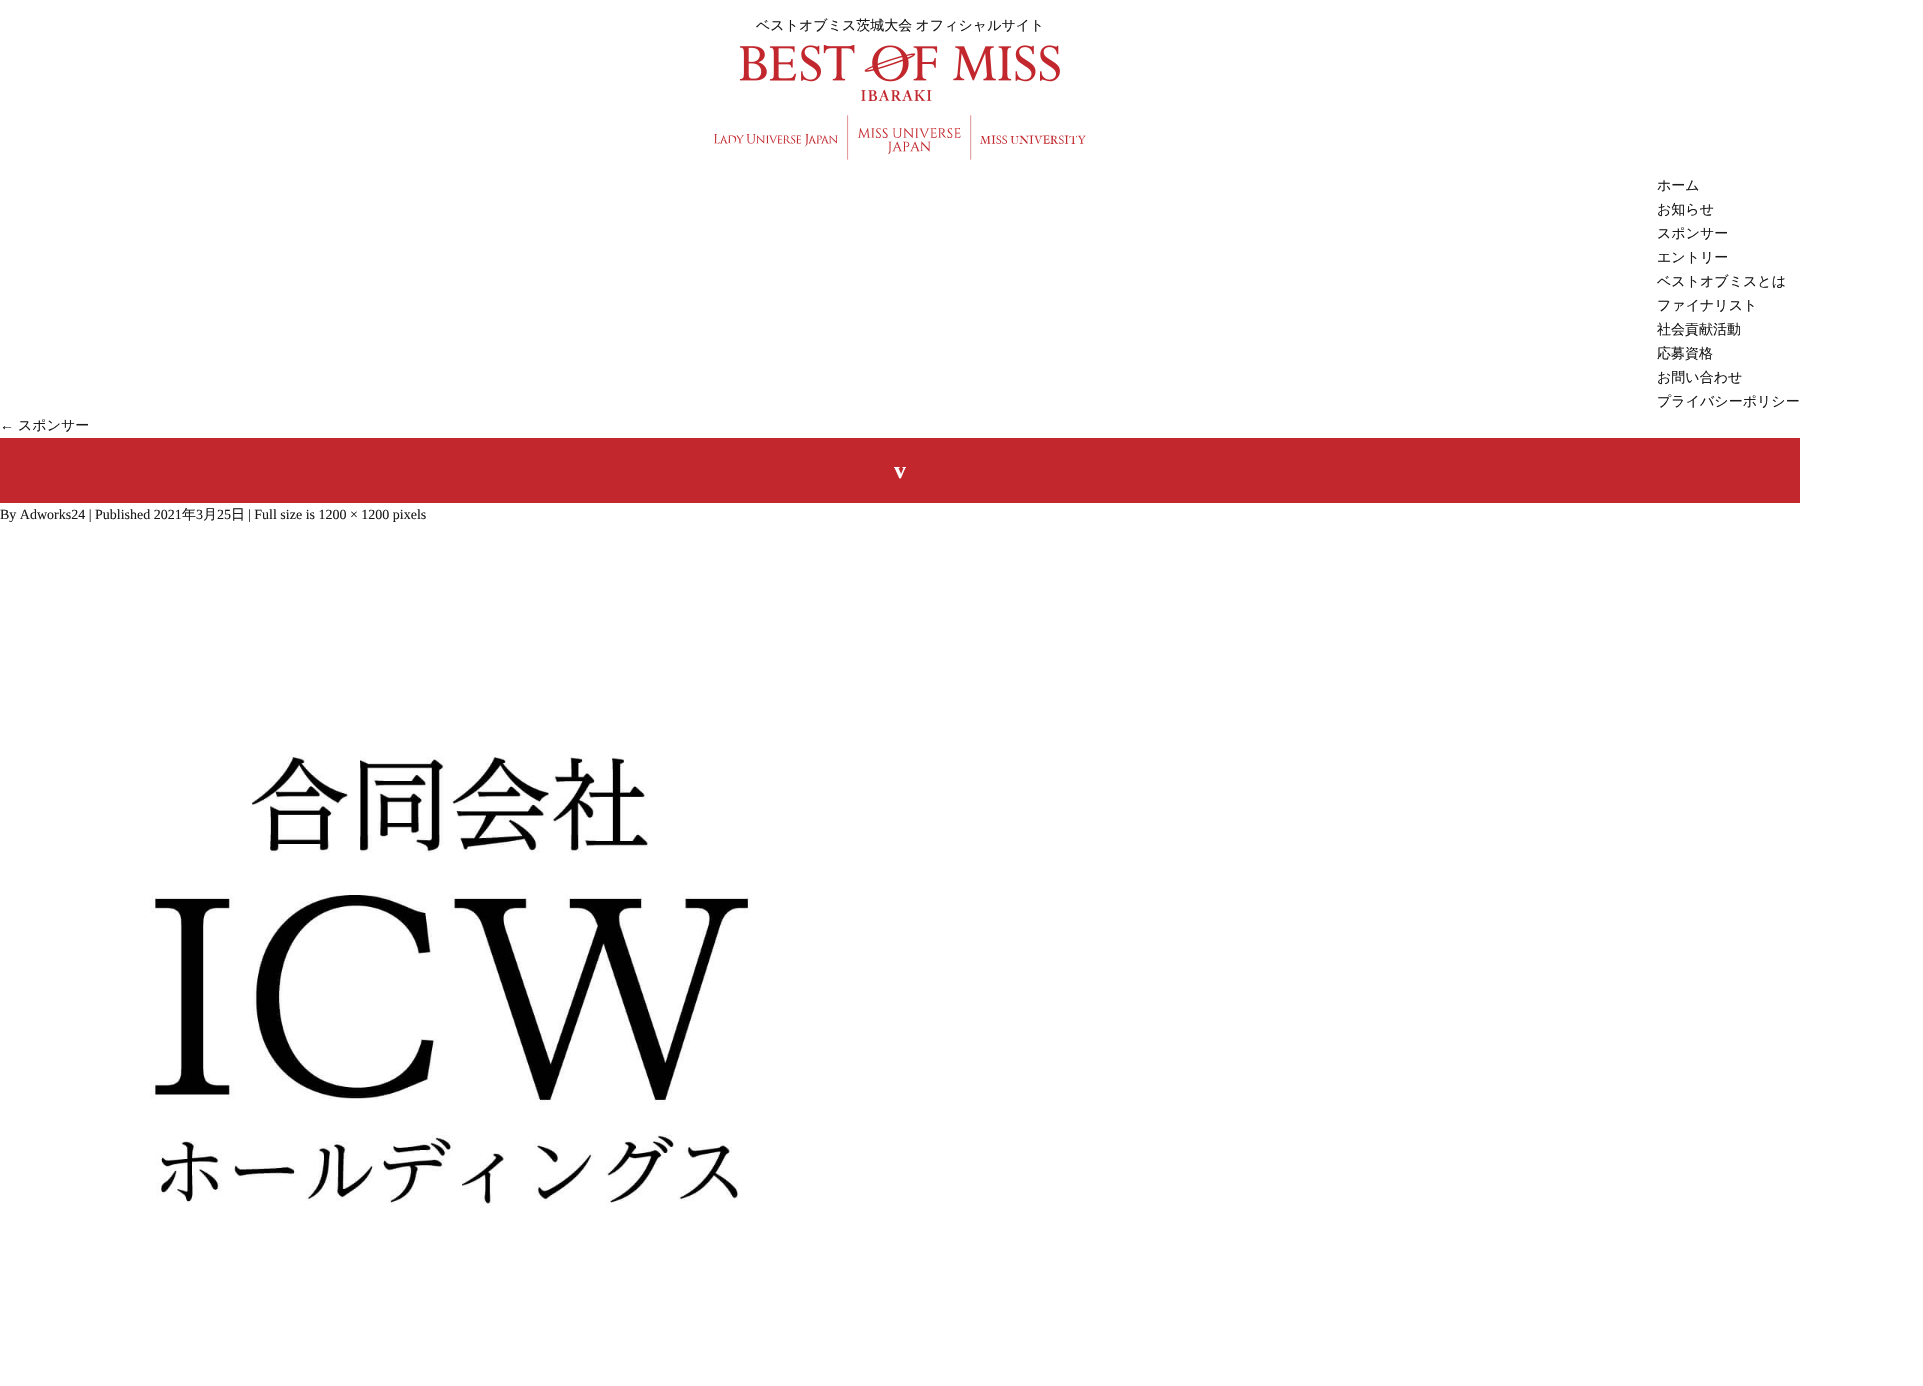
void draw(SkCanvas* canvas) {
	SkPaint fill;
	fill.setAntiAlias(true);
	auto makeFont = [&](const char* family, int weight, float size, bool italic = false) {
		SkFontStyle style(weight, SkFontStyle::kNormal_Width,
			italic ? SkFontStyle::kItalic_Slant : SkFontStyle::kUpright_Slant);
		SkFont result(fontMgr->matchFamilyStyle(family, style), size);
		result.setSubpixel(true);
		return result;
	};
	auto text = [&](const char* s, float x, float y, const SkFont& font) {
		canvas->drawString(s, x, y, font, fill);
	};
	auto spacedText = [&](const char* s, float x, float y, const SkFont& font, const SkPaint& ink, float letter, float word) {
		std::vector<SkGlyphID> glyphs(font.countText(s, strlen(s), SkTextEncoding::kUTF8));
		std::vector<float> xs(glyphs.size());
		font.textToGlyphs(s, strlen(s), SkTextEncoding::kUTF8, glyphs);
		font.getXPos(glyphs, xs, x);
		float extra = 0;
		for (size_t i = 0; i < glyphs.size(); i++) {
			xs[i] += extra;
			extra += letter + word * (glyphs[i] == font.unicharToGlyph(' '));
		}
		canvas->drawTextBlob(SkTextBlob::MakeFromPosHGlyphs(glyphs, xs, y, font), 0, 0, ink);
	};
	auto box = [&](float l, float t, float r, float b) {
		canvas->drawRect(SkRect::MakeLTRB(l, t, r, b), fill);
	};
	auto picture = [&](const char* path, float l, float t, float r, float b) {
		auto image = SkImages::DeferredFromEncodedData(SkData::MakeFromFileName(path));
		canvas->drawImageRect(image, SkRect::MakeLTRB(l, t, r, b), SkSamplingOptions());
	};
	canvas->clear(0xFFFFFFFF);
	picture("image0.png", 740, 45, 1060, 101);
	picture("image1.png", 714, 115, 1086, 160);
	fill.setColor(0xFFC1272D);
	box(0, 438, 1800, 503);
	picture("image2.png", 150, 757, 750, 1207);
	auto font1 = makeFont("WenQuanYi Zen Hei", 500, 14);
	fill.setColor(0xFF1A1A1A);
	spacedText("ベストオブミス茨城大会 オフィシャルサイト", 756, 30, font1, fill, 0, -1);
	text("ホーム", 1657, 190, font1);
	text("お知らせ", 1657, 214, font1);
	text("スポンサー", 1657, 238, font1);
	text("エントリー", 1657, 262, font1);
	text("ベストオブミスとは", 1657, 286, font1);
	text("ファイナリスト", 1657, 310, font1);
	text("社会貢献活動", 1657, 334, font1);
	text("応募資格", 1657, 358, font1);
	text("お問い合わせ", 1657, 382, font1);
	text("プライバシーポリシー", 1657, 406, font1);
	auto font2 = makeFont("Liberation Serif", 400, 14);
	text("←", 0, 430, font2);
	text("スポンサー", 18, 430, font1);
	auto font3 = makeFont("Liberation Serif", 700, 24);
	fill.setColor(0xFFFFFFFF);
	text("v", 894, 478, font3);
	fill.setColor(0xFF1A1A1A);
	text("By Adworks24 | Published 2021", 0, 519, font2);
	text("年", 182, 519, font1);
	text("3", 196, 519, font2);
	text("月", 203, 519, font1);
	text("25", 217, 519, font2);
	text("日", 231, 519, font1);
	text("| Full size is 1200 × 1200 pixels", 248, 519, font2);
}
